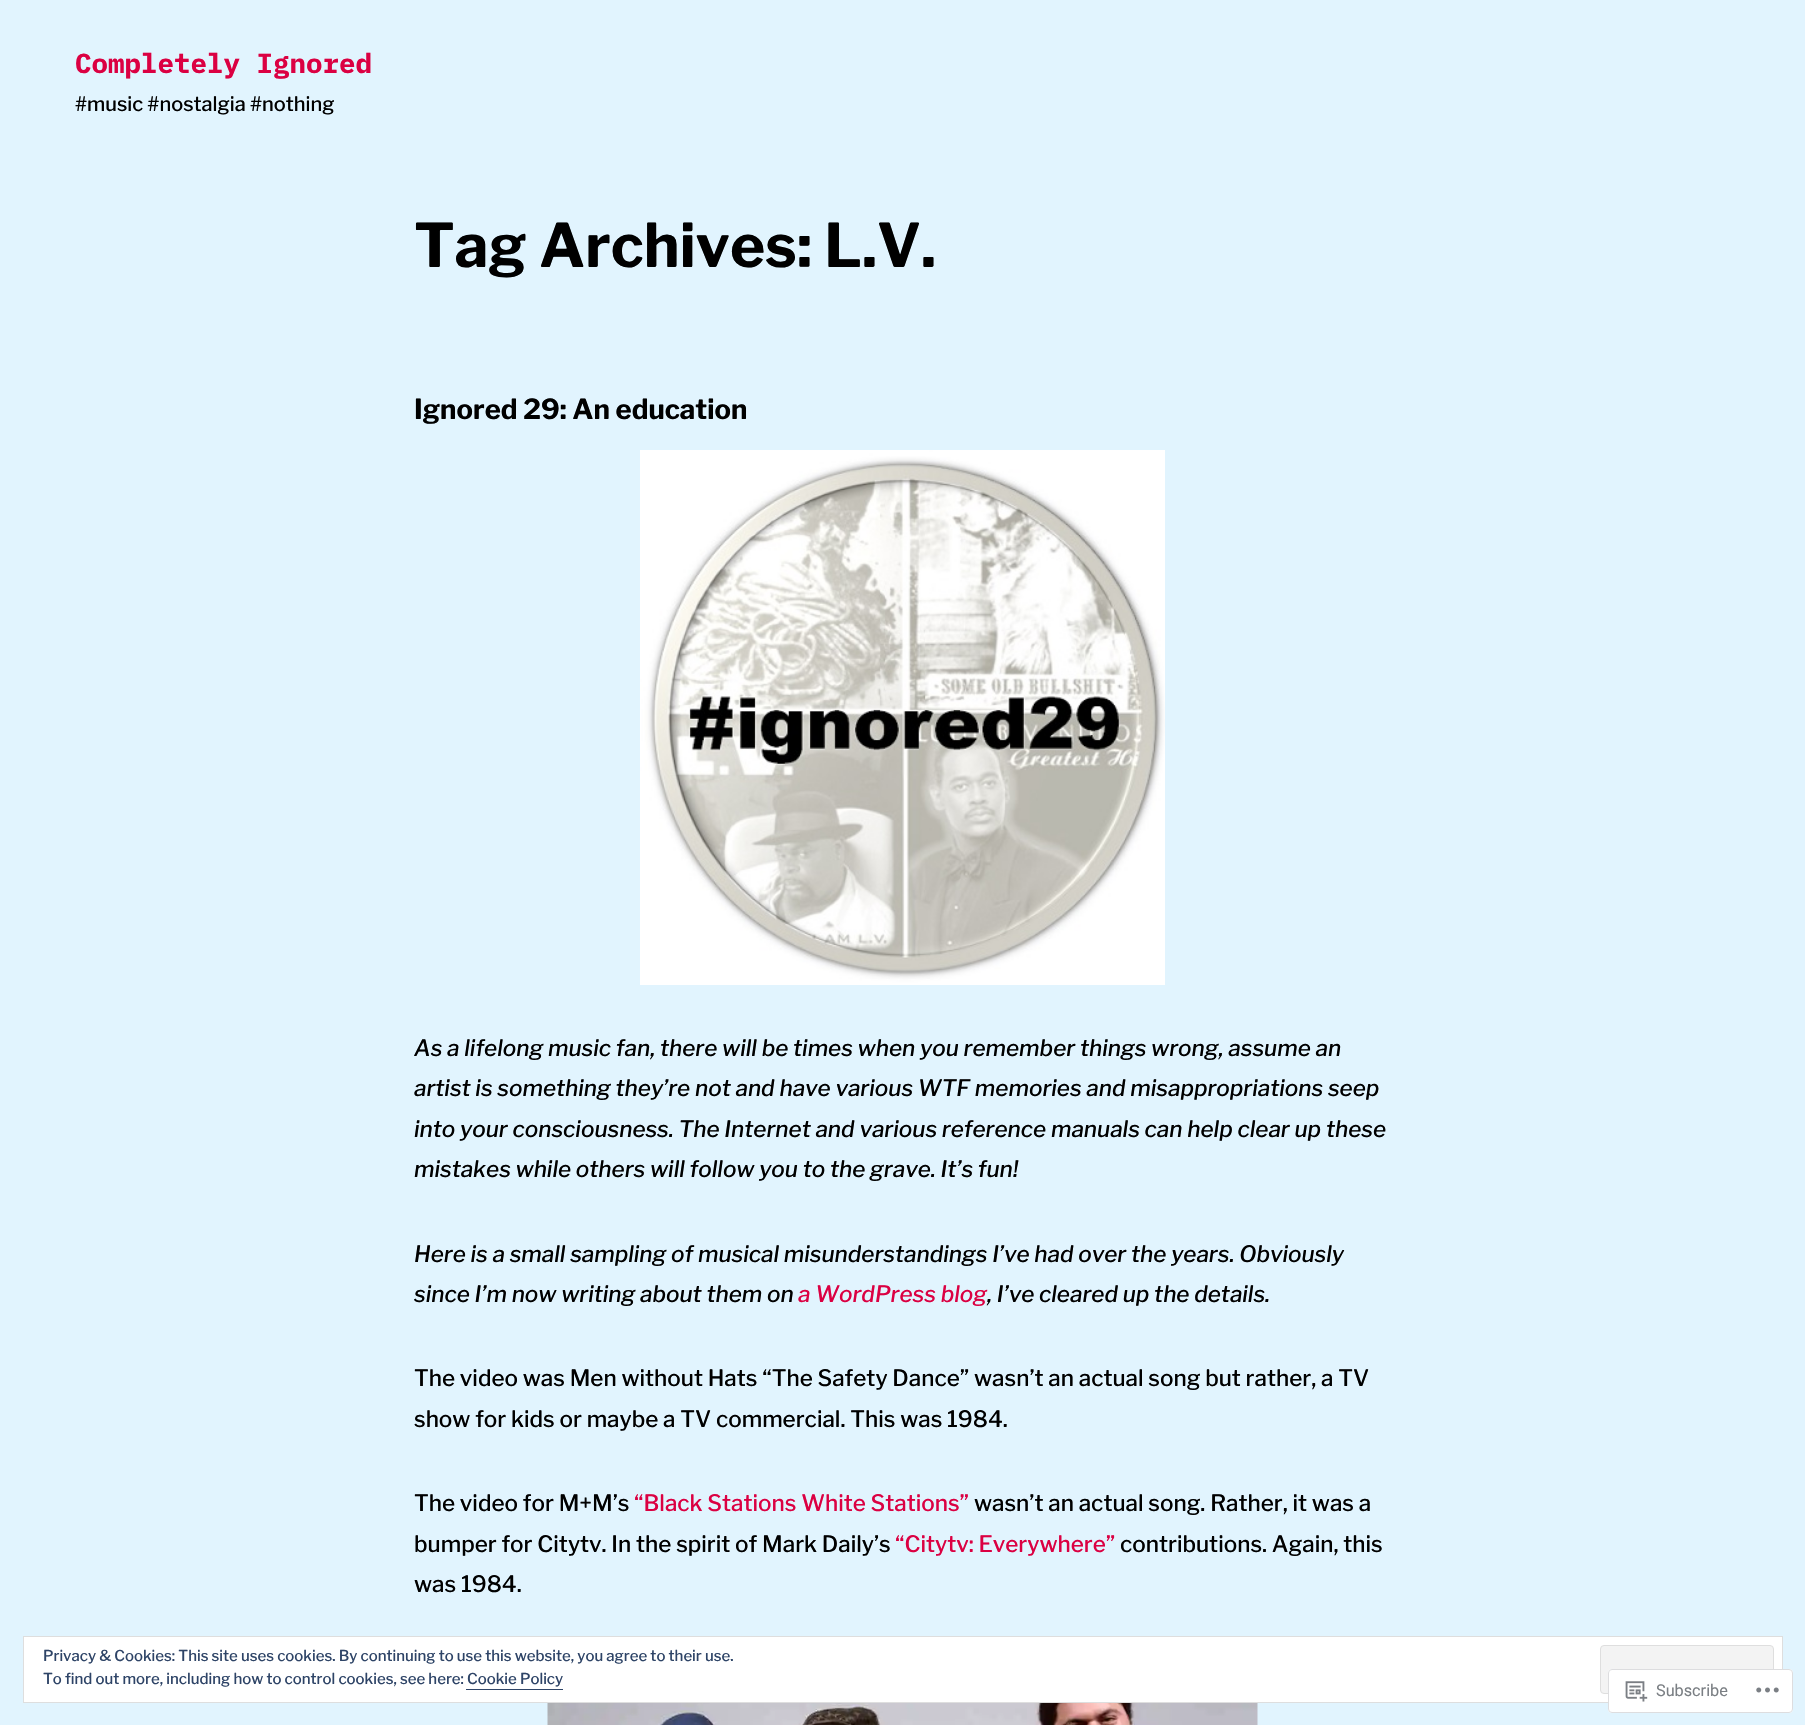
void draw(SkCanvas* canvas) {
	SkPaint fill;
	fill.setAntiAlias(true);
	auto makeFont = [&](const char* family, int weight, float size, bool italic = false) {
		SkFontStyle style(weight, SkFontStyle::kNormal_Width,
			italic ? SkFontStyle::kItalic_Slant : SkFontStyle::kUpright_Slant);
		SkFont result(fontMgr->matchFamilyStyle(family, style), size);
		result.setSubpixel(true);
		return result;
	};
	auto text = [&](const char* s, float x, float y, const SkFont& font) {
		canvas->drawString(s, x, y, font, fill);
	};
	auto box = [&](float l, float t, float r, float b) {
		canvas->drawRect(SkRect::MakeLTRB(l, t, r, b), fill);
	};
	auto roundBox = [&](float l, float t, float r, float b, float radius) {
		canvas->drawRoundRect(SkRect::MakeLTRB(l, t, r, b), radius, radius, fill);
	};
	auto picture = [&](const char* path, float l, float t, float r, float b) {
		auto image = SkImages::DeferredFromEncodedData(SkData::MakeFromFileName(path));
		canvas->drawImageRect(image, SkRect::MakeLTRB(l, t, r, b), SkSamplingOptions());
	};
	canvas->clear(0xFFE1F4FE);
	picture("image0.png", 640, 450, 1165, 985);
	picture("image1.png", 547, 1703, 1258, 1725);
	fill.setColor(0xFFFFFFFF);
	canvas->drawRect(SkRect::MakeLTRB(23.5f, 1636.5f, 1782.5f, 1702.5f), fill);
	fill.setStyle(SkPaint::kStroke_Style);
	fill.setStrokeWidth(1);
	fill.setColor(0xFFDEDEDE);
	canvas->drawRect(SkRect::MakeLTRB(23.5f, 1636.5f, 1782.5f, 1702.5f), fill);
	fill.setStyle(SkPaint::kFill_Style);
	fill.setColor(0xFFF3F3F3);
	canvas->drawRoundRect(SkRect::MakeLTRB(1600.5f, 1645.5f, 1773.5f, 1693.5f), 3.5f, 3.5f, fill);
	fill.setStyle(SkPaint::kStroke_Style);
	fill.setColor(0xFFDEDEDE);
	canvas->drawRoundRect(SkRect::MakeLTRB(1600.5f, 1645.5f, 1773.5f, 1693.5f), 3.5f, 3.5f, fill);
	fill.setStyle(SkPaint::kFill_Style);
	fill.setColor(0xFF2E4467);
	box(466, 1689, 563, 1690);
	fill.setColor(0xFAFFFFFF);
	roundBox(1608, 1669, 1793, 1713, 4);
	fill.setStyle(SkPaint::kStroke_Style);
	fill.setColor(0xFADCDCDE);
	canvas->drawRoundRect(SkRect::MakeLTRB(1608.5f, 1669.5f, 1792.5f, 1712.5f), 3.5f, 3.5f, fill);
	picture("image2.png", 1625, 1681, 1648, 1702);
	picture("image3.png", 1756, 1687, 1779, 1693);
	auto font1 = makeFont("IBM Plex Mono", 700, 27.5f);
	fill.setStyle(SkPaint::kFill_Style);
	fill.setColor(0xFFDB0042);
	text("Completely Ignored", 75, 73, font1);
	auto font2 = makeFont("Libre Franklin", 500, 20);
	fill.setColor(0xFF000000);
	text("#music #nostalgia #nothing", 75, 111, font2);
	auto font3 = makeFont("Libre Franklin", 700, 60);
	text("Tag Archives: L.V.", 414, 267, font3);
	auto font4 = makeFont("Libre Franklin", 700, 27.5f);
	text("Ignored 29: An education", 414, 419, font4);
	auto font5 = makeFont("Libre Franklin", 500, 22.5f, true);
	text("As a lifelong music fan, there will be times when you remember things wrong, assume an", 414, 1056, font5);
	text("artist is something they’re not and have various WTF memories and misappropriations seep", 414, 1096, font5);
	text("into your consciousness. The Internet and various reference manuals can help clear up these", 414, 1137, font5);
	text("mistakes while others will follow you to the grave. It’s fun!", 414, 1177, font5);
	text("Here is a small sampling of musical misunderstandings I’ve had over the years. Obviously", 414, 1262, font5);
	text("since I’m now writing about them on", 414, 1302, font5);
	fill.setColor(0xFFDB0042);
	text("a WordPress blog", 798, 1302, font5);
	fill.setColor(0xFF000000);
	text(", I’ve cleared up the details.", 987, 1302, font5);
	auto font6 = makeFont("Libre Franklin", 500, 22.5f);
	text("The video was Men without Hats “The Safety Dance” wasn’t an actual song but rather, a TV", 414, 1386, font6);
	text("show for kids or maybe a TV commercial. This was 1984.", 414, 1427, font6);
	text("The video for M+M’s", 414, 1511, font6);
	fill.setColor(0xFFDB0042);
	text("“Black Stations White Stations”", 634, 1511, font6);
	fill.setColor(0xFF000000);
	text("wasn’t an actual song. Rather, it was a", 974, 1511, font6);
	text("bumper for Citytv. In the spirit of Mark Daily’s", 414, 1552, font6);
	fill.setColor(0xFFDB0042);
	text("“Citytv: Everywhere”", 895, 1552, font6);
	fill.setColor(0xFF000000);
	text("contributions. Again, this", 1120, 1552, font6);
	text("was 1984.", 414, 1592, font6);
	auto font7 = makeFont("Libre Franklin", 500, 15);
	fill.setColor(0xFF2E4467);
	text("Privacy & Cookies: This site uses cookies. By continuing to use this website, you agree to their use.", 43, 1661, font7);
	text("To find out more, including how to control cookies, see here: Cookie Policy", 43, 1684, font7);
	auto font8 = makeFont("Roboto", 400, 16.25f);
	fill.setColor(0xFF7B7F84);
	text("Subscribe", 1656, 1696, font8);
}
